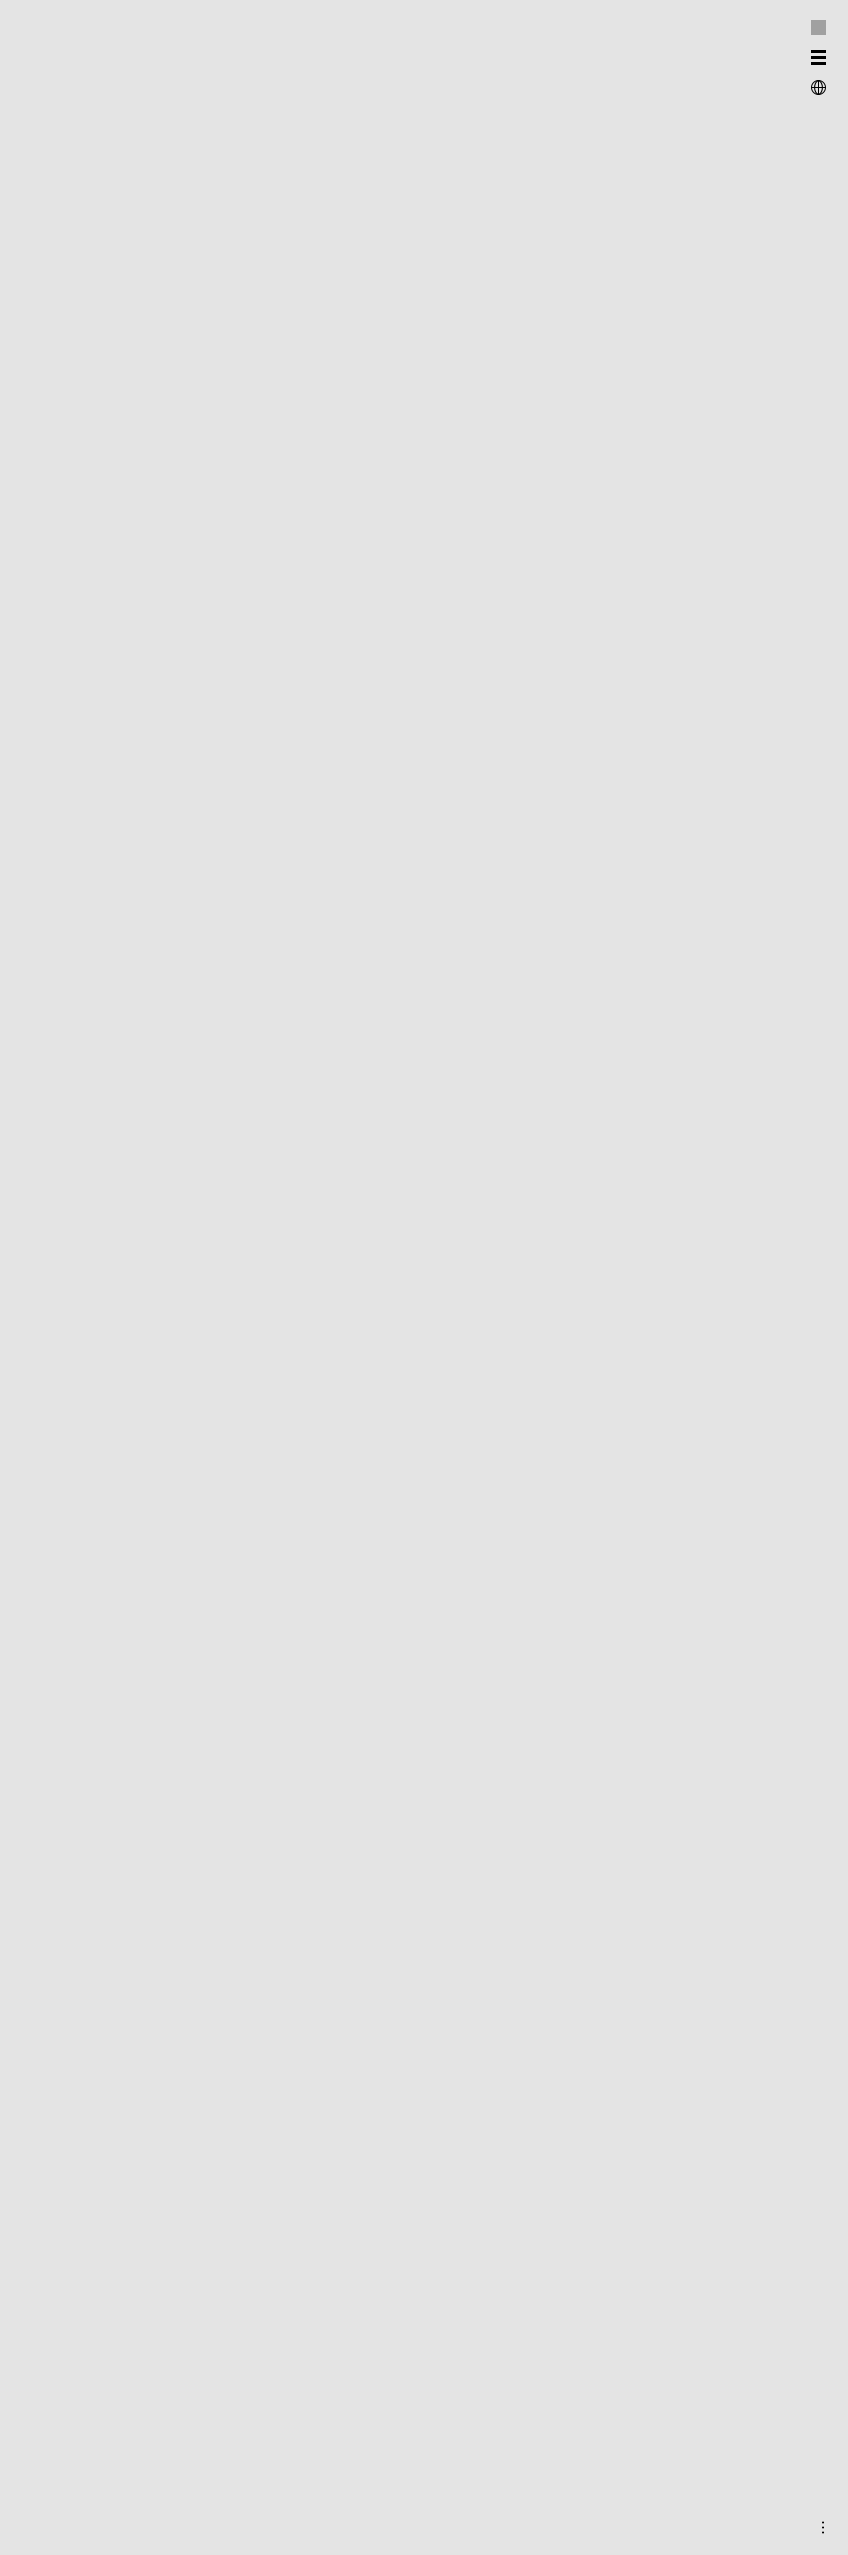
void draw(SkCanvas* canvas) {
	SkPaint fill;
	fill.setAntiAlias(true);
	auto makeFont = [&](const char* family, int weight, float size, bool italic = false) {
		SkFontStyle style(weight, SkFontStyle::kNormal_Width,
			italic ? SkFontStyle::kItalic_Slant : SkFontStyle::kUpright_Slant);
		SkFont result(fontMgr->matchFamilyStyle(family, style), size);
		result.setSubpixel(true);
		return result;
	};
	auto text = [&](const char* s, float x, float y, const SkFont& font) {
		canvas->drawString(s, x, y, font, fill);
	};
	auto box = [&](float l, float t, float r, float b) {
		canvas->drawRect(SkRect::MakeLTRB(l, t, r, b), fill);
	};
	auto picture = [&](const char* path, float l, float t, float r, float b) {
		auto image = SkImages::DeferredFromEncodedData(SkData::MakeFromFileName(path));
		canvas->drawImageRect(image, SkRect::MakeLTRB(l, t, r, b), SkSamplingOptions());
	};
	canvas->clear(0xFFE4E4E4);
	fill.setColor(0xFFA0A0A0);
	box(811, 20, 826, 35);
	fill.setColor(0xFF000000);
	box(811, 50, 826, 53);
	box(811, 62, 826, 65);
	box(811, 56, 826, 59);
	picture("image0.png", 811, 80, 826, 95);
	auto font1 = makeFont("Liberation Sans", 400, 18);
	canvas->save();
	canvas->rotate(-90, 824, 2535);
	text("...", 824, 2535, font1);
	canvas->restore();
}
